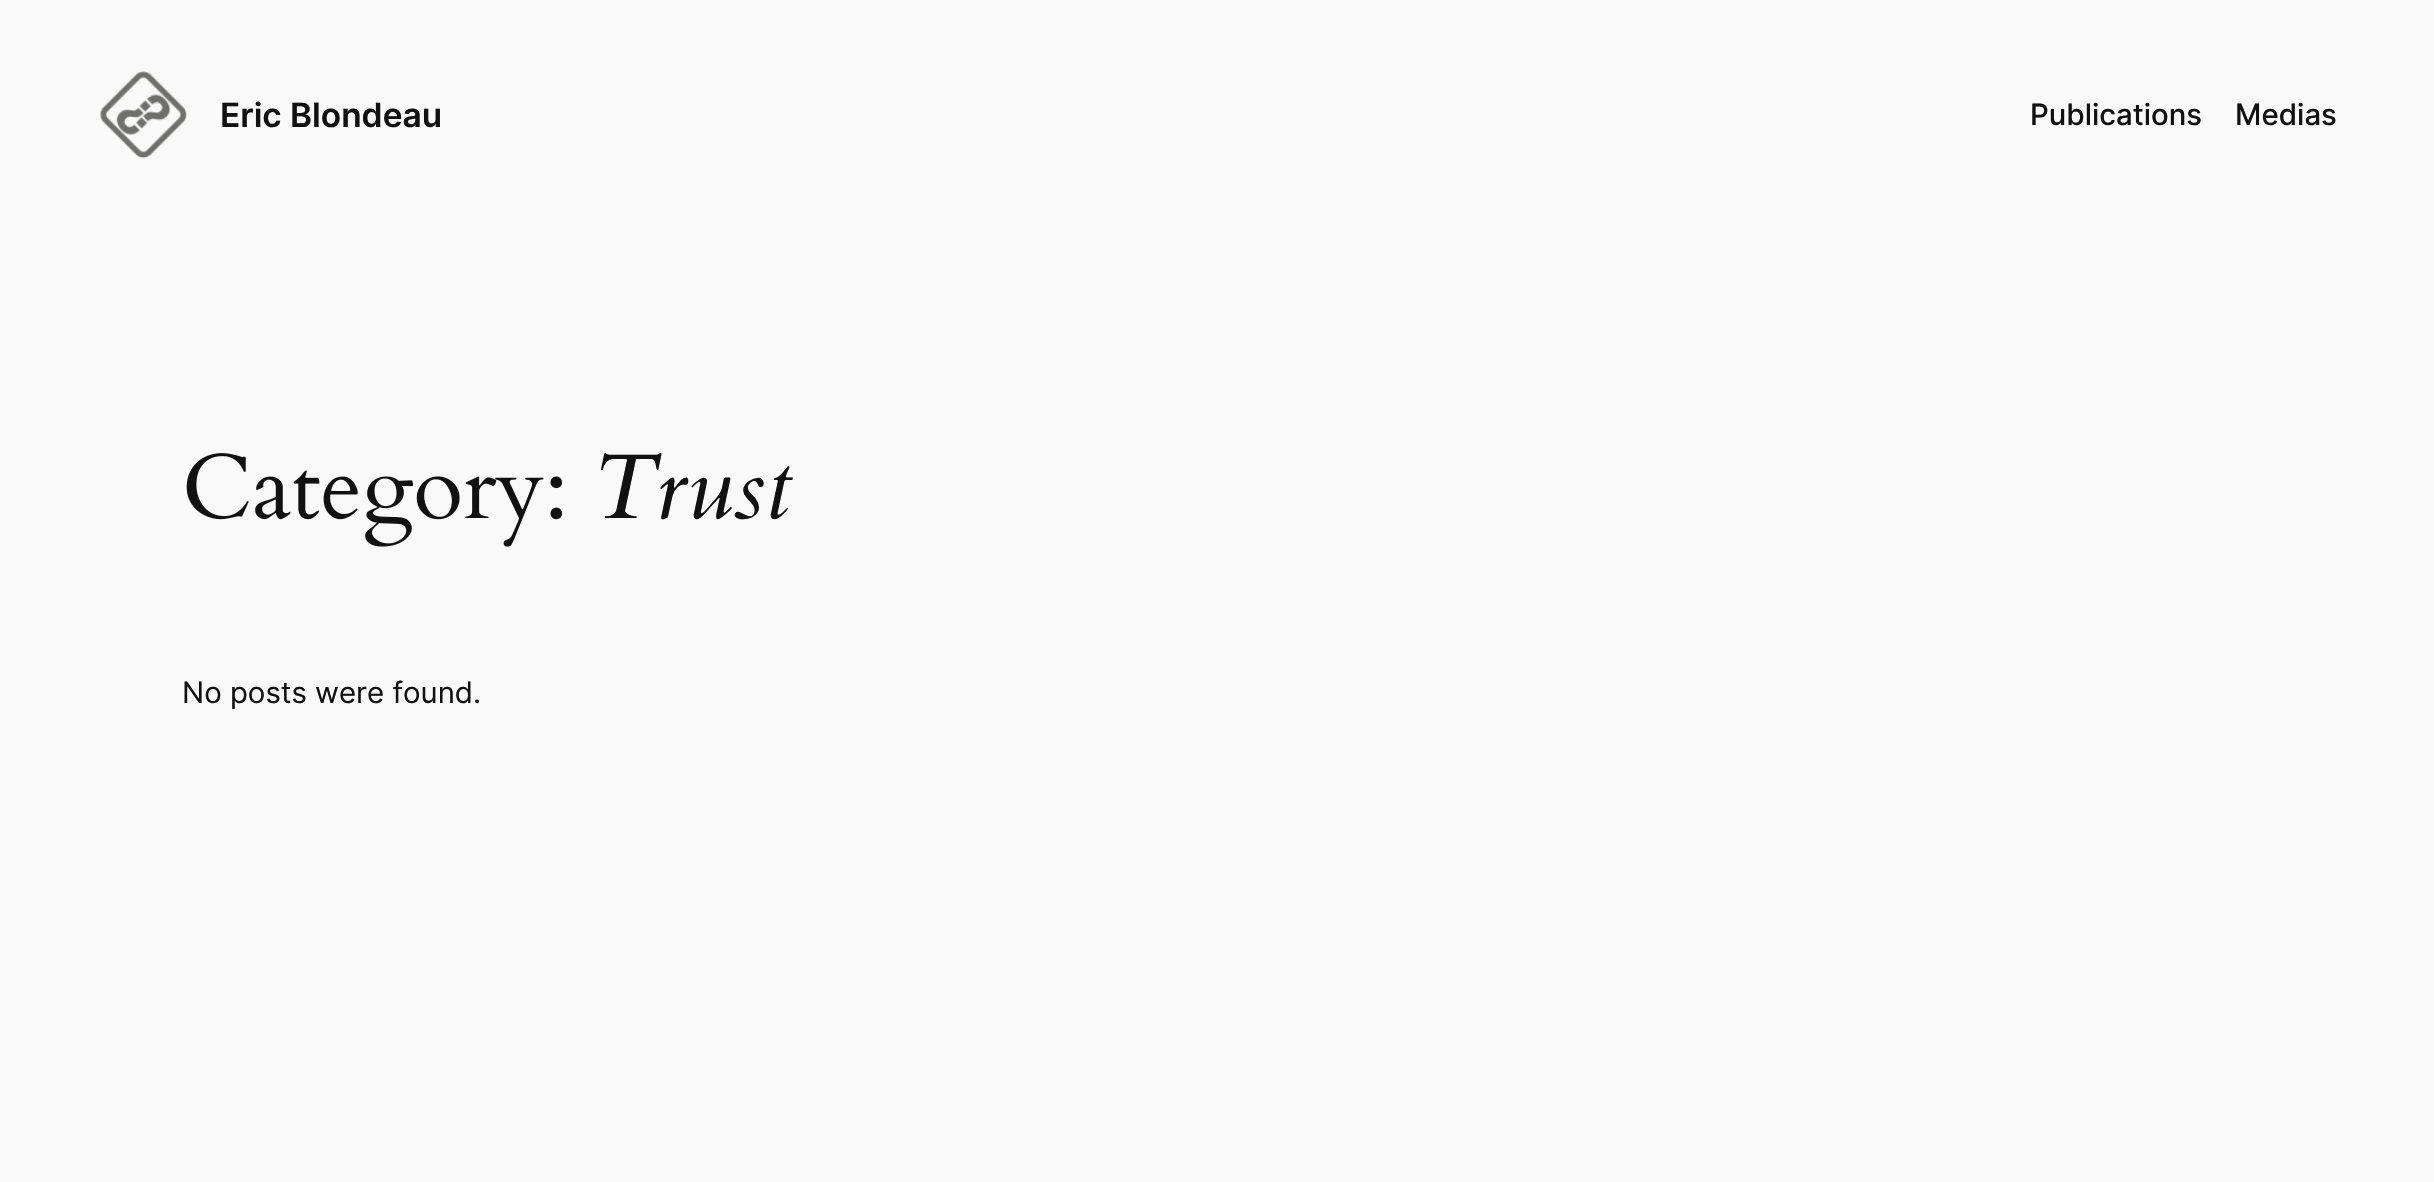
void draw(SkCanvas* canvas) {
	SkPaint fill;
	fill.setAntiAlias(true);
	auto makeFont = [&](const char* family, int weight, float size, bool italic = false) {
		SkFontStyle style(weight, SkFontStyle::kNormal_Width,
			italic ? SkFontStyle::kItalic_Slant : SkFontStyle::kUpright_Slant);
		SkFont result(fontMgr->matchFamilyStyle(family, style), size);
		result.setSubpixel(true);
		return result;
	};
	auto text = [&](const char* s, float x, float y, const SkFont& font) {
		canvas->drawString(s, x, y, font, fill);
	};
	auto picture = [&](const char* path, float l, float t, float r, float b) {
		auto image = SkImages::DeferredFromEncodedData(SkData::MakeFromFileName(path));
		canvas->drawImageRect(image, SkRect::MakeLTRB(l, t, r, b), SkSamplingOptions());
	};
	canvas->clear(0xFFF9F9F9);
	picture("image0.png", 100, 71, 188, 159);
	picture("image1.png", 186, 453, 563, 547);
	auto font1 = makeFont("Inter", 600, 33.5f);
	fill.setColor(0xFF111111);
	text("Eric Blondeau", 220, 127, font1);
	auto font2 = makeFont("Inter", 500, 29.4f);
	text("Publications", 2030, 125, font2);
	text("Medias", 2235, 125, font2);
	auto font3 = makeFont("Cardo", 400, 92, true);
	text("Trust", 592, 518, font3);
	auto font4 = makeFont("Inter", 400, 29.4f);
	text("No posts were found.", 182, 703, font4);
}
